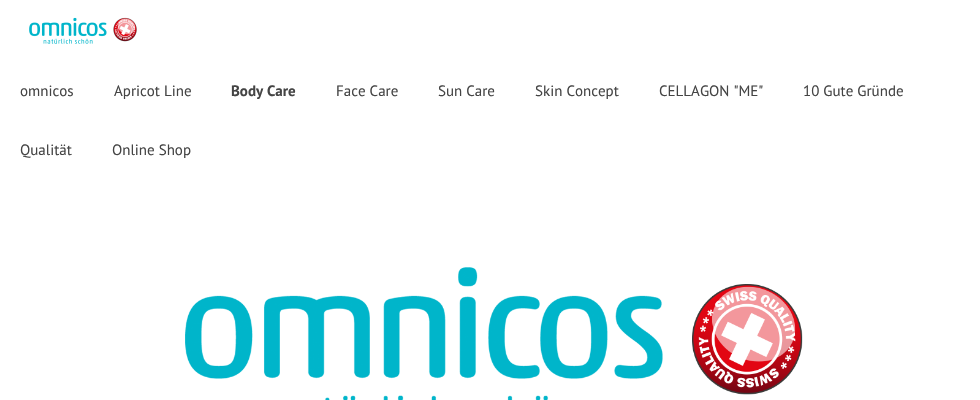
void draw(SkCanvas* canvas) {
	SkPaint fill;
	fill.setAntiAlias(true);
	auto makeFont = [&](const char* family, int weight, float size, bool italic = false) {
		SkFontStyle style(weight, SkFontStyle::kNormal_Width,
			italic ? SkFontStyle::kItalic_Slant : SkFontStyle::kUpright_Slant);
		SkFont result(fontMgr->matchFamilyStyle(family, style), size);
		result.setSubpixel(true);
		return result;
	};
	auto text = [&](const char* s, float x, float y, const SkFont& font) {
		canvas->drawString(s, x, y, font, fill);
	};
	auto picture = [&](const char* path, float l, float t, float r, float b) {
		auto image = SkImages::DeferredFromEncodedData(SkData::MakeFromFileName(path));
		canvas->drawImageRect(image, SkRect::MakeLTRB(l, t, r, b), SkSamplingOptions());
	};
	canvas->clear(0xFFFFFFFF);
	picture("image0.png", 29, 17, 137, 44);
	picture("image1.png", 185, 267, 803, 400);
	auto font1 = makeFont("PT Sans", 400, 15);
	fill.setColor(0xFF444444);
	text("omnicos", 20, 96, font1);
	text("Apricot Line", 114, 96, font1);
	auto font2 = makeFont("PT Sans", 700, 15);
	text("Body Care", 231, 96, font2);
	text("Face Care", 336, 96, font1);
	text("Sun Care", 438, 96, font1);
	text("Skin Concept", 535, 96, font1);
	text("CELLAGON \"ME\"", 659, 96, font1);
	text("10 Gute Gründe", 803, 96, font1);
	text("Qualität", 20, 155, font1);
	text("Online Shop", 112, 155, font1);
}
